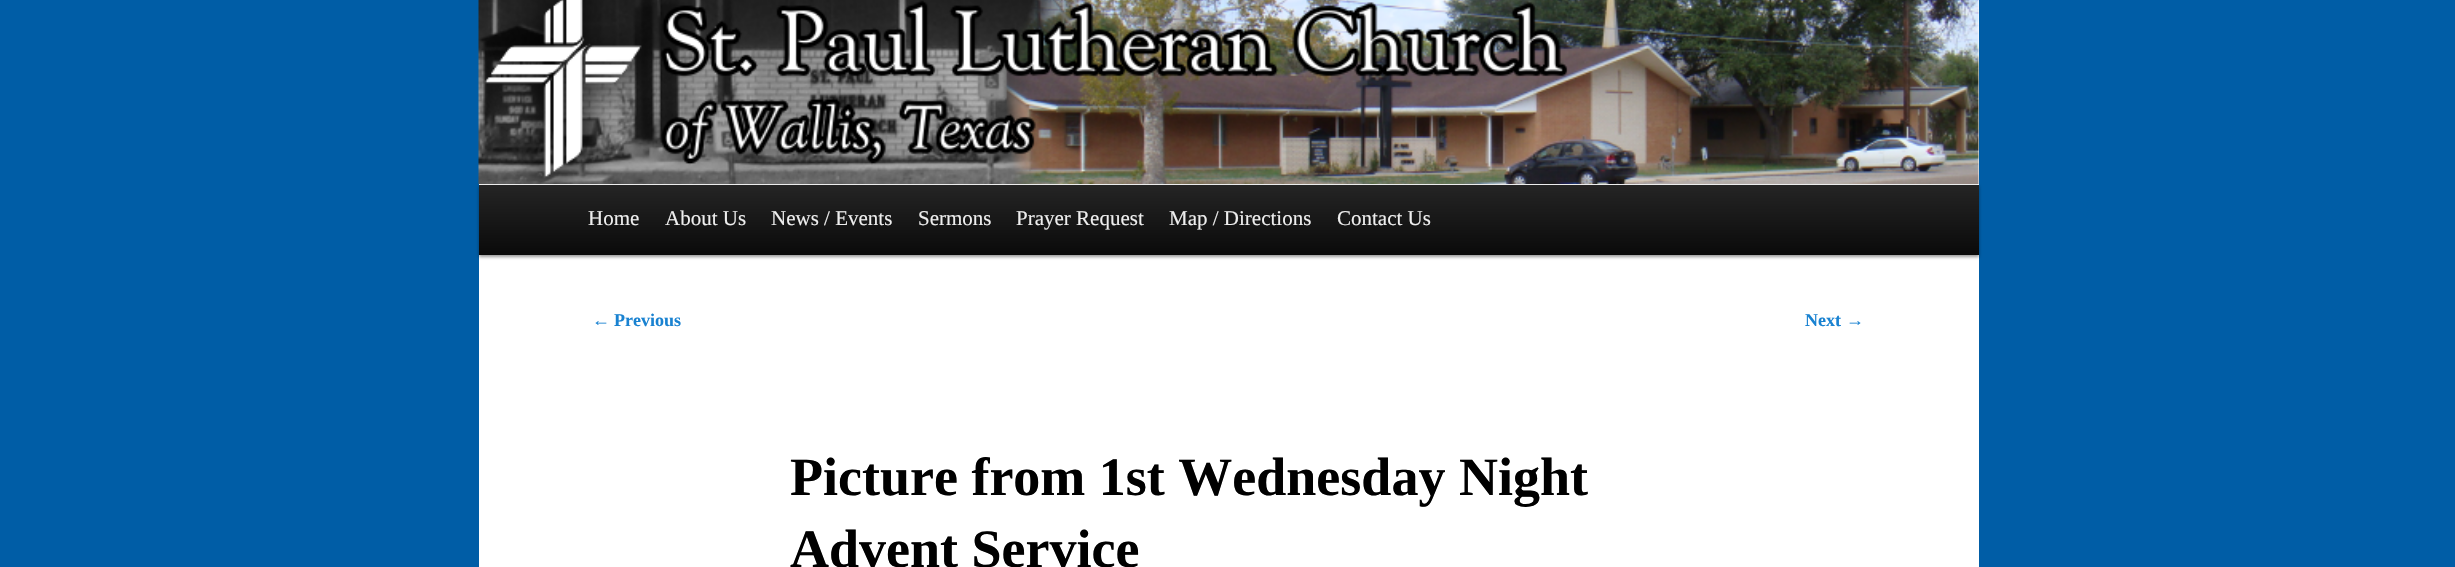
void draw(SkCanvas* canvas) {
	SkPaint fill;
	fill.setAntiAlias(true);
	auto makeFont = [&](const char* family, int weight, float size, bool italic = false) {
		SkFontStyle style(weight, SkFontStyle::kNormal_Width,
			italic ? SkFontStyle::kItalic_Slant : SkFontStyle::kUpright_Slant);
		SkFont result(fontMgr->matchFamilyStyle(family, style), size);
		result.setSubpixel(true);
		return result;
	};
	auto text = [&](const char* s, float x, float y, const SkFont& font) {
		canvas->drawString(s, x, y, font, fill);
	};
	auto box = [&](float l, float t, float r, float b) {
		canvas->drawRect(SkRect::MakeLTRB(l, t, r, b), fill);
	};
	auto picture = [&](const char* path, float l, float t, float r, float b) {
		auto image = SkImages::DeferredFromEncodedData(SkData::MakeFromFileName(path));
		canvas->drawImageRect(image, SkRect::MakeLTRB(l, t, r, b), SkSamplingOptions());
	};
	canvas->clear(0xFF005DA6);
	fill.setColor(0xFFFFFFFF);
	box(479, 0, 1979, 567);
	fill.setColor(0x66000000);
	fill.setMaskFilter(SkMaskFilter::MakeBlur(kNormal_SkBlurStyle, 1.5f));
	canvas->drawRect(SkRect::MakeLTRB(479, 186, 1979, 257), fill);
	fill.setMaskFilter(nullptr);
	picture("image0.png", 478, 0, 1979, 184);
	{
		const SkColor colors[] = {0xFF252525, 0xFF0A0A0A};
		const float stops[] = {0, 1};
		const SkPoint ends[] = {{1229, 184}, {1229, 255}};
		fill.setShader(SkGradientShader::MakeLinear(ends, colors, stops, 2, SkTileMode::kClamp));
		fill.setAlpha(255);
	}
	box(479, 185, 1979, 255);
	auto font1 = makeFont("Liberation Serif", 400, 21);
	fill.setShader(nullptr);
	fill.setColor(0xFFEEEEEE);
	text("Home", 588, 225, font1);
	text("About Us", 665, 225, font1);
	text("News / Events", 771, 225, font1);
	text("Sermons", 918, 225, font1);
	text("Prayer Request", 1016, 225, font1);
	text("Map / Directions", 1169, 225, font1);
	text("Contact Us", 1337, 225, font1);
	auto font2 = makeFont("Liberation Serif", 400, 18);
	fill.setColor(0xFF1982D1);
	text("←", 592, 326, font2);
	auto font3 = makeFont("Liberation Serif", 700, 18);
	text("Previous", 614, 326, font3);
	text("Next", 1805, 326, font3);
	text("→", 1846, 326, font2);
	auto font4 = makeFont("Liberation Serif", 700, 54);
	fill.setColor(0xFF000000);
	text("Picture from 1st Wednesday Night", 790, 495, font4);
	text("Advent Service", 790, 567, font4);
}
